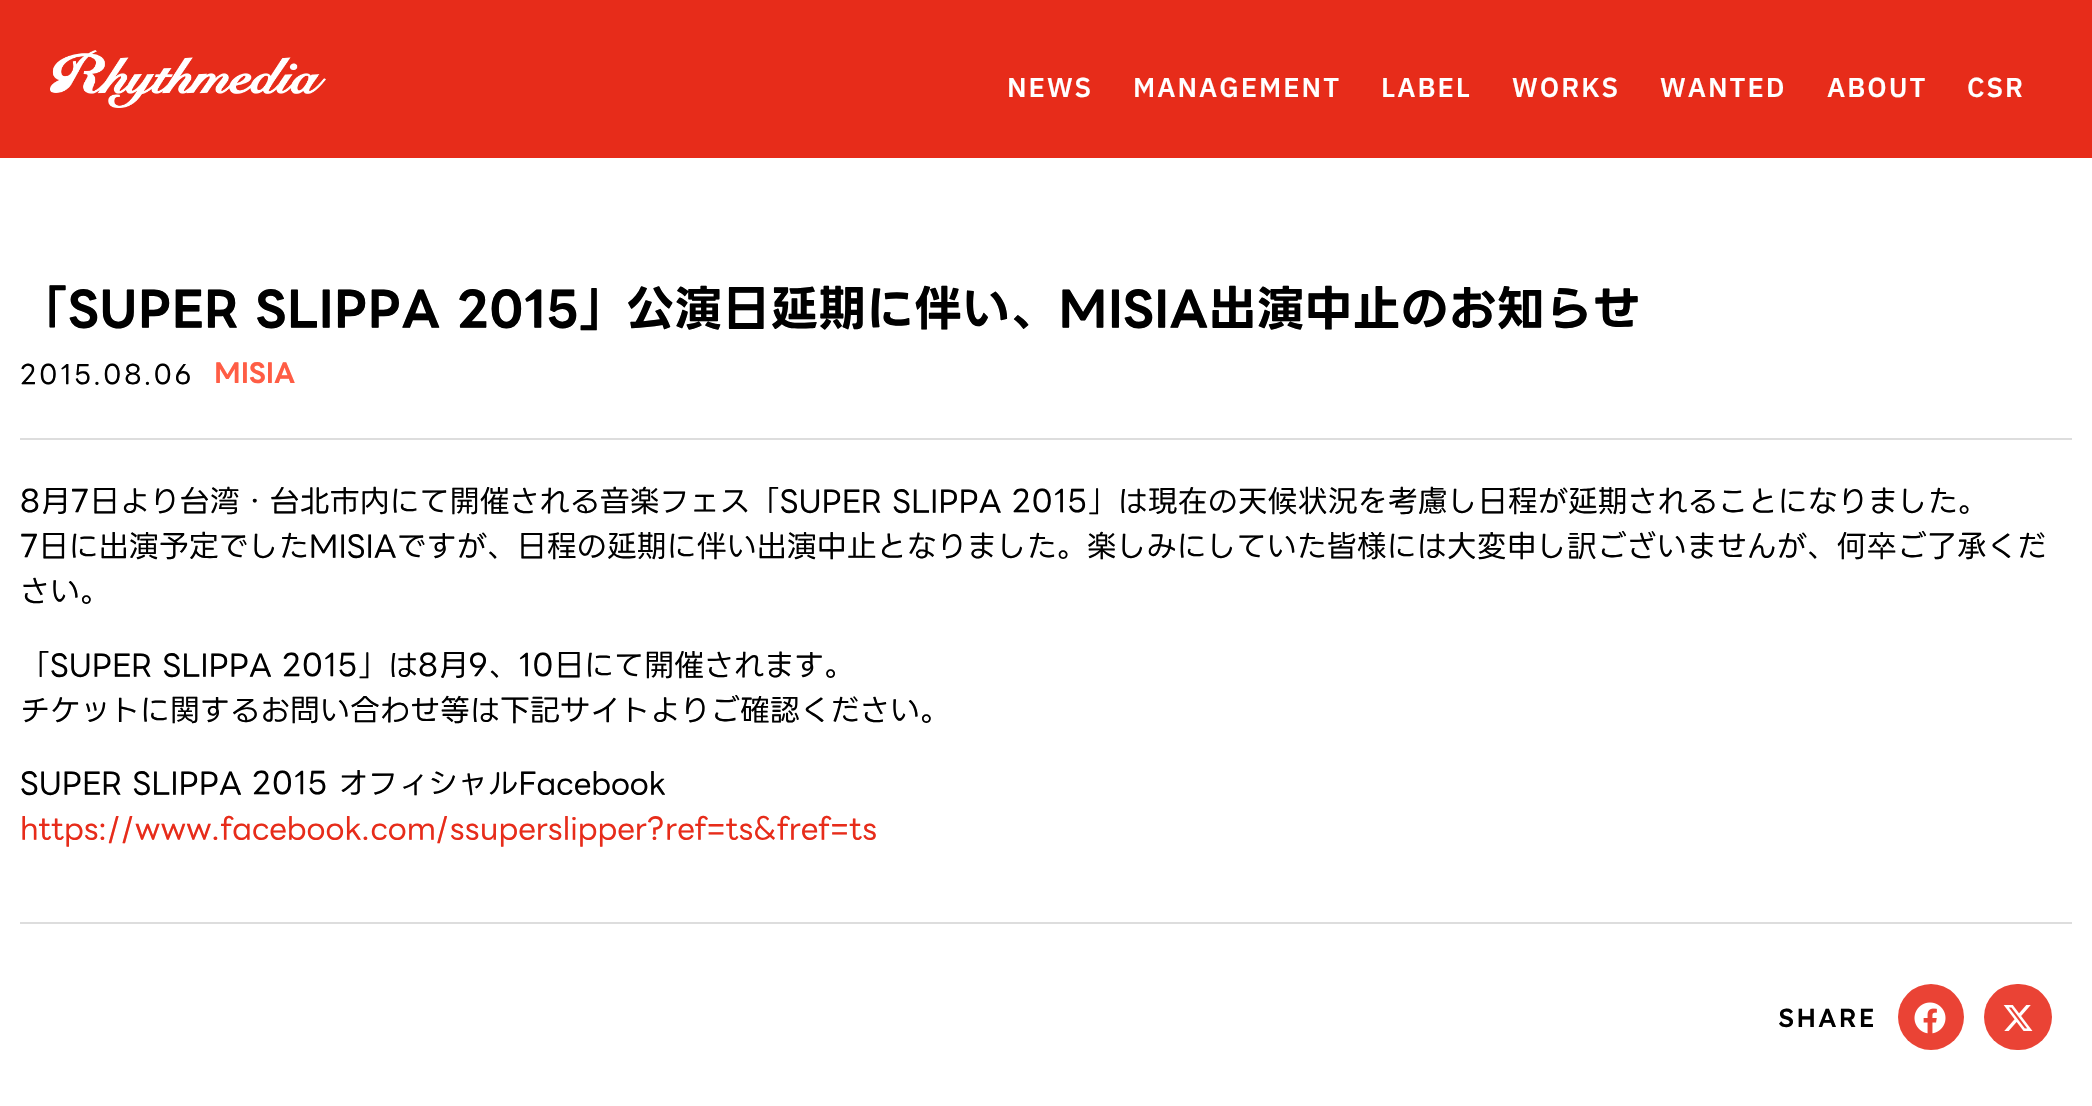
void draw(SkCanvas* canvas) {
	SkPaint fill;
	fill.setAntiAlias(true);
	auto makeFont = [&](const char* family, int weight, float size, bool italic = false) {
		SkFontStyle style(weight, SkFontStyle::kNormal_Width,
			italic ? SkFontStyle::kItalic_Slant : SkFontStyle::kUpright_Slant);
		SkFont result(fontMgr->matchFamilyStyle(family, style), size);
		result.setSubpixel(true);
		return result;
	};
	auto text = [&](const char* s, float x, float y, const SkFont& font) {
		canvas->drawString(s, x, y, font, fill);
	};
	auto spacedText = [&](const char* s, float x, float y, const SkFont& font, const SkPaint& ink, float letter, float word) {
		std::vector<SkGlyphID> glyphs(font.countText(s, strlen(s), SkTextEncoding::kUTF8));
		std::vector<float> xs(glyphs.size());
		font.textToGlyphs(s, strlen(s), SkTextEncoding::kUTF8, glyphs);
		font.getXPos(glyphs, xs, x);
		float extra = 0;
		for (size_t i = 0; i < glyphs.size(); i++) {
			xs[i] += extra;
			extra += letter + word * (glyphs[i] == font.unicharToGlyph(' '));
		}
		canvas->drawTextBlob(SkTextBlob::MakeFromPosHGlyphs(glyphs, xs, y, font), 0, 0, ink);
	};
	auto box = [&](float l, float t, float r, float b) {
		canvas->drawRect(SkRect::MakeLTRB(l, t, r, b), fill);
	};
	auto roundBox = [&](float l, float t, float r, float b, float radius) {
		canvas->drawRoundRect(SkRect::MakeLTRB(l, t, r, b), radius, radius, fill);
	};
	auto picture = [&](const char* path, float l, float t, float r, float b) {
		auto image = SkImages::DeferredFromEncodedData(SkData::MakeFromFileName(path));
		canvas->drawImageRect(image, SkRect::MakeLTRB(l, t, r, b), SkSamplingOptions());
	};
	canvas->clear(0xFFFFFFFF);
	fill.setColor(0xFFE72C1A);
	box(0, 0, 2092, 158);
	picture("image0.png", 50, 50, 326, 108);
	fill.setColor(0xFFDDDDDD);
	box(20, 438, 2072, 440);
	box(20, 922, 2072, 924);
	fill.setColor(0xFFEA4335);
	canvas->drawCircle(1931, 1017, 33, fill);
	picture("image1.png", 1914, 1002, 1946, 1034);
	roundBox(1984, 984, 2052, 1050, 33);
	picture("image2.png", 2003, 1005, 2033, 1031);
	auto font1 = makeFont("IBM Plex Sans JP", 600, 26);
	fill.setColor(0xFFFFFFFF);
	spacedText("NEWS", 1007, 97, font1, fill, 2, 0);
	spacedText("MANAGEMENT", 1133, 97, font1, fill, 2, 0);
	spacedText("LABEL", 1381, 97, font1, fill, 2, 0);
	spacedText("WORKS", 1512, 97, font1, fill, 2, 0);
	spacedText("WANTED", 1660, 97, font1, fill, 2, 0);
	spacedText("ABOUT", 1827, 97, font1, fill, 2, 0);
	spacedText("CSR", 1967, 97, font1, fill, 2, 0);
	auto font2 = makeFont("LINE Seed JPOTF", 700, 48);
	fill.setColor(0xFF000000);
	text("「SUPER SLIPPA 2015」公演日延期に伴い、MISIA出演中止のお知らせ", 20, 326, font2);
	auto font3 = makeFont("LINE Seed JPOTF", 400, 26);
	spacedText("2015.08.06", 20, 384, font3, fill, 2, 0);
	auto font4 = makeFont("LINE Seed JPOTF", 700, 26);
	fill.setColor(0xFFFF5D45);
	text("MISIA", 214, 382, font4);
	auto font5 = makeFont("LINE Seed JPOTF", 400, 30);
	fill.setColor(0xFF000000);
	text("8月7日より台湾・台北市内にて開催される音楽フェス「SUPER SLIPPA 2015」は現在の天候状況を考慮し日程が延期されることになりました。", 20, 512, font5);
	text("7日に出演予定でしたMISIAですが、日程の延期に伴い出演中止となりました。楽しみにしていた皆様には大変申し訳ございませんが、何卒ご了承くだ", 20, 557, font5);
	text("さい。", 20, 602, font5);
	text("「SUPER SLIPPA 2015」は8月9、10日にて開催されます。", 20, 676, font5);
	text("チケットに関するお問い合わせ等は下記サイトよりご確認ください。", 20, 721, font5);
	text("SUPER SLIPPA 2015 オフィシャルFacebook", 20, 794, font5);
	fill.setColor(0xFFE72C1A);
	text("https://www.facebook.com/ssuperslipper?ref=ts&fref=ts", 20, 839, font5);
	auto font6 = makeFont("Lexend", 500, 26);
	fill.setColor(0xFF000000);
	spacedText("SHARE", 1778, 1027, font6, fill, 2, 0);
}
